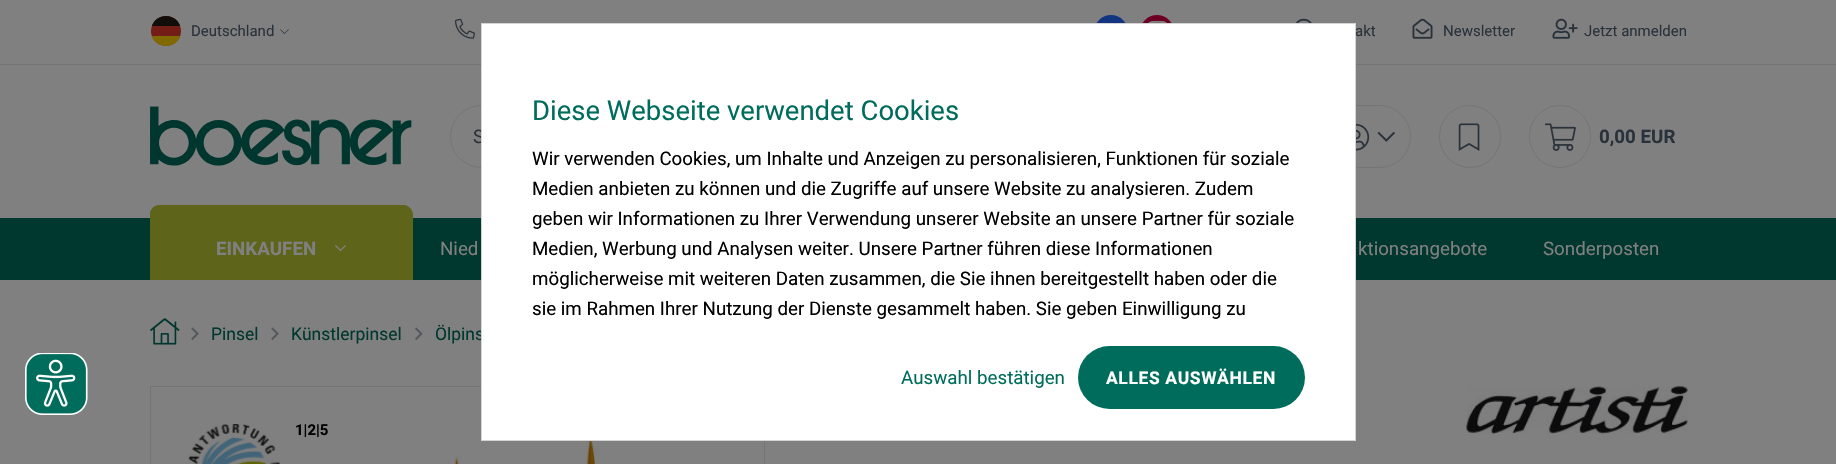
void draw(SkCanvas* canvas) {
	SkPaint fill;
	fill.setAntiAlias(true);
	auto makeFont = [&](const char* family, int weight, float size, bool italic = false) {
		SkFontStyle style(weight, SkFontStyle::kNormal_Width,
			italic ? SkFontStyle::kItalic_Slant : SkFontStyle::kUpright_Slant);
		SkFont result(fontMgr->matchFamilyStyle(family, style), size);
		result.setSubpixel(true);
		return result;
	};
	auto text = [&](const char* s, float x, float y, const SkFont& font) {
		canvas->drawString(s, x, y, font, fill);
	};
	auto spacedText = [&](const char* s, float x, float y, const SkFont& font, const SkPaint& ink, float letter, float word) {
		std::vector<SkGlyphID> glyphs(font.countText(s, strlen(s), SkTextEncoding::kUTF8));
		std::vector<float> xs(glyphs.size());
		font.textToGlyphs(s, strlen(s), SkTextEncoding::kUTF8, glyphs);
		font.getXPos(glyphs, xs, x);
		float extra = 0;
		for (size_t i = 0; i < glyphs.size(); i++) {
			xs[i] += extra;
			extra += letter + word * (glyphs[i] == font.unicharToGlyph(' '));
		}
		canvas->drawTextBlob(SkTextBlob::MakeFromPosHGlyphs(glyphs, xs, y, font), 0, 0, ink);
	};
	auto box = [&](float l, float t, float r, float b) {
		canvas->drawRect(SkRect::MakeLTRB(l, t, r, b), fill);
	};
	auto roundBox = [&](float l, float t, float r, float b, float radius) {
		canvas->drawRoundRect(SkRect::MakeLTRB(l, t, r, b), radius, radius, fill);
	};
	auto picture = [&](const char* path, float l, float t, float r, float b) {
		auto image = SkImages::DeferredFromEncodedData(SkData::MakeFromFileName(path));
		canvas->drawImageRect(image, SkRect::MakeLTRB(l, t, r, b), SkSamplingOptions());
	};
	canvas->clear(0xFF808080);
	fill.setColor(0xFF737475);
	box(0, 64, 1836, 65);
	fill.setColor(0xFF731D17);
	canvas->drawCircle(166, 31, 15, fill);
	canvas->save();
	canvas->clipPath(SkPathBuilder().moveTo(166, 16).cubicTo(174.5f, 16, 181, 22.5f, 181, 31).cubicTo(181, 39.5f, 174.5f, 46, 166, 46).cubicTo(157.5f, 46, 151, 39.5f, 151, 31).cubicTo(151, 22.5f, 157.5f, 16, 166, 16).close().detach(), true);
	fill.setColor(0xFF110E09);
	box(152, 16, 180, 26);
	fill.setColor(0xFF806900);
	box(152, 36, 180, 46);
	canvas->restore();
	picture("image0.png", 280, 29, 289, 34);
	picture("image1.png", 455, 18, 475, 39);
	fill.setColor(0xFF113580);
	canvas->drawCircle(1111, 32, 17, fill);
	fill.setColor(0xFF6C0023);
	canvas->drawCircle(1157, 32, 17, fill);
	picture("image2.png", 1148, 20, 1167, 23);
	picture("image3.png", 1295, 18, 1312, 23);
	picture("image4.png", 1412, 18, 1433, 39);
	picture("image5.png", 1552, 18, 1578, 39);
	picture("image6.png", 150, 106, 412, 166);
	fill.setStyle(SkPaint::kStroke_Style);
	fill.setStrokeWidth(1);
	fill.setColor(0xFF737475);
	canvas->drawRoundRect(SkRect::MakeLTRB(450.5f, 105.5f, 1162.5f, 167.5f), 31, 31, fill);
	canvas->drawRoundRect(SkRect::MakeLTRB(1326.5f, 105.5f, 1410.5f, 167.5f), 31, 31, fill);
	picture("image7.png", 1356, 123, 1370, 151);
	picture("image8.png", 1377, 131, 1395, 142);
	canvas->drawRoundRect(SkRect::MakeLTRB(1439.5f, 105.5f, 1500.5f, 167.5f), 30.5f, 30.5f, fill);
	picture("image9.png", 1458, 123, 1480, 151);
	canvas->drawRoundRect(SkRect::MakeLTRB(1529.5f, 105.5f, 1590.5f, 167.5f), 30.5f, 30.5f, fill);
	picture("image10.png", 1545, 123, 1576, 151);
	fill.setStyle(SkPaint::kFill_Style);
	fill.setColor(0xFF00372E);
	box(0, 218, 1836, 280);
	fill.setColor(0xFF5E6419);
	canvas->drawPath(SkPathBuilder().moveTo(160, 205).lineTo(403, 205).cubicTo(408.5f, 205, 413, 209.5f, 413, 215).lineTo(413, 280).lineTo(150, 280).lineTo(150, 215).cubicTo(150, 209.5f, 154.5f, 205, 160, 205).close().detach(), fill);
	canvas->drawPath(SkPathBuilder(SkPathFillType::kEvenOdd).moveTo(160, 205).lineTo(402, 205).cubicTo(408, 205, 412, 209, 412, 215).lineTo(412, 280).lineTo(150, 280).lineTo(150, 215).cubicTo(150, 209, 154, 205, 160, 205).close().moveTo(160, 206).lineTo(402, 206).cubicTo(407, 206, 411, 210, 411, 215).lineTo(411, 280).lineTo(151, 280).lineTo(151, 215).cubicTo(151, 210, 155, 206, 160, 206).close().detach(), fill);
	picture("image11.png", 335, 245, 346, 252);
	picture("image12.png", 150, 318, 180, 345);
	picture("image13.png", 191, 327, 199, 340);
	picture("image13.png", 271, 327, 279, 340);
	picture("image14.png", 415, 327, 423, 340);
	fill.setStyle(SkPaint::kStroke_Style);
	fill.setColor(0xFF737475);
	canvas->drawRect(SkRect::MakeLTRB(150.5f, 386.5f, 764.5f, 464.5f), fill);
	picture("image15.png", 454, 433, 599, 464);
	picture("image16.png", 188, 424, 281, 464);
	picture("image17.png", 1466, 386, 1688, 434);
	picture("image18.png", 25, 353, 88, 415);
	auto font1 = makeFont("Roboto", 400, 15);
	fill.setStyle(SkPaint::kFill_Style);
	fill.setColor(0xFF29323B);
	text("Deutschland", 191, 36, font1);
	text("akt", 1355, 36, font1);
	text("Newsletter", 1443, 36, font1);
	text("Jetzt anmelden", 1584, 36, font1);
	auto font2 = makeFont("Roboto", 400, 18.75f);
	text("S", 473, 143, font2);
	auto font3 = makeFont("Roboto", 700, 18.75f);
	text("0,00 EUR", 1599, 143, font3);
	fill.setColor(0xFF808080);
	text("EINKAUFEN", 216, 255, font3);
	text("Nied", 440, 255, font2);
	text("ktionsangebote", 1358, 255, font2);
	text("Sonderposten", 1543, 255, font2);
	auto font4 = makeFont("Roboto", 400, 17.5f);
	fill.setColor(0xFF00372E);
	text("Pinsel", 211, 340, font4);
	text("Künstlerpinsel", 291, 340, font4);
	text("Ölpins", 435, 340, font4);
	auto font5 = makeFont("Roboto", 700, 15);
	fill.setColor(0xFF000000);
	text("1|2|5", 295, 435, font5);
	fill.setColor(0xFFFFFFFF);
	canvas->drawRect(SkRect::MakeLTRB(481.5f, 23.5f, 1355.5f, 440.5f), fill);
	fill.setStyle(SkPaint::kStroke_Style);
	fill.setColor(0xFFD4D4D4);
	canvas->drawRect(SkRect::MakeLTRB(481.5f, 23.5f, 1355.5f, 440.5f), fill);
	auto font6 = makeFont("Roboto", 400, 27.5f);
	fill.setStyle(SkPaint::kFill_Style);
	fill.setColor(0xFF006D5C);
	text("Diese Webseite verwendet Cookies", 532, 120, font6);
	fill.setColor(0xFF000000);
	text("Wir verwenden Cookies, um Inhalte und Anzeigen zu personalisieren, Funktionen für soziale", 532, 165, font2);
	text("Medien anbieten zu können und die Zugriffe auf unsere Website zu analysieren. Zudem", 532, 195, font2);
	text("geben wir Informationen zu Ihrer Verwendung unserer Website an unsere Partner für soziale", 532, 225, font2);
	text("Medien, Werbung und Analysen weiter. Unsere Partner führen diese Informationen", 532, 255, font2);
	text("möglicherweise mit weiteren Daten zusammen, die Sie ihnen bereitgestellt haben oder die", 532, 285, font2);
	text("sie im Rahmen Ihrer Nutzung der Dienste gesammelt haben. Sie geben Einwilligung zu", 532, 315, font2);
	fill.setColor(0xFF006D5C);
	text("Auswahl bestätigen", 901, 384, font2);
	roundBox(1078, 346, 1305, 409, 31.5f);
	auto font7 = makeFont("Roboto", 700, 17.5f);
	fill.setColor(0xFFFFFFFF);
	spacedText("ALLES AUSWÄHLEN", 1106, 384, font7, fill, 0.6f, 0);
	canvas->save();
	canvas->clipRect(SkRect::MakeLTRB(483, 24, 1355, 440));
	fill.setStyle(SkPaint::kStroke_Style);
	fill.setColor(0xFF526375);
	canvas->drawRect(SkRect::MakeLTRB(533.5f, 433.5f, 564.5f, 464.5f), fill);
	canvas->drawRect(SkRect::MakeLTRB(744.5f, 433.5f, 775.5f, 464.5f), fill);
	canvas->drawRect(SkRect::MakeLTRB(966.5f, 433.5f, 998.5f, 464.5f), fill);
	canvas->drawRect(SkRect::MakeLTRB(1175.5f, 433.5f, 1207.5f, 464.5f), fill);
	canvas->restore();
	fill.setStyle(SkPaint::kFill_Style);
	{
		const SkColor colors[] = {0xFFFFFFFF, 0xE6FFFFFF};
		const float stops[] = {0, 1};
		const SkPoint ends[] = {{919, 440}, {919, 334}};
		fill.setShader(SkGradientShader::MakeLinear(ends, colors, stops, 2, SkTileMode::kClamp));
		fill.setAlpha(255);
	}
	box(533, 433, 1208, 440);
}
